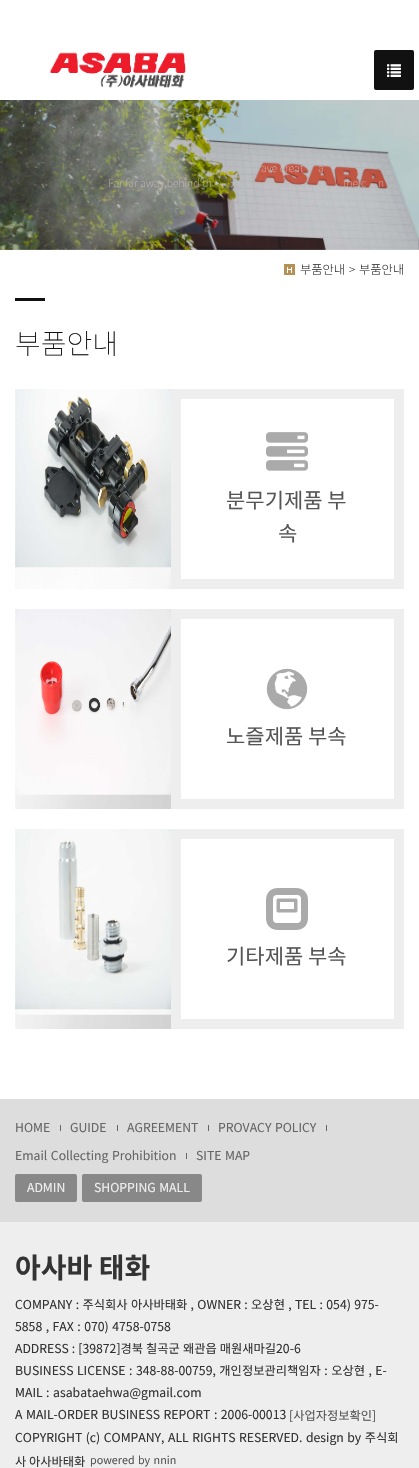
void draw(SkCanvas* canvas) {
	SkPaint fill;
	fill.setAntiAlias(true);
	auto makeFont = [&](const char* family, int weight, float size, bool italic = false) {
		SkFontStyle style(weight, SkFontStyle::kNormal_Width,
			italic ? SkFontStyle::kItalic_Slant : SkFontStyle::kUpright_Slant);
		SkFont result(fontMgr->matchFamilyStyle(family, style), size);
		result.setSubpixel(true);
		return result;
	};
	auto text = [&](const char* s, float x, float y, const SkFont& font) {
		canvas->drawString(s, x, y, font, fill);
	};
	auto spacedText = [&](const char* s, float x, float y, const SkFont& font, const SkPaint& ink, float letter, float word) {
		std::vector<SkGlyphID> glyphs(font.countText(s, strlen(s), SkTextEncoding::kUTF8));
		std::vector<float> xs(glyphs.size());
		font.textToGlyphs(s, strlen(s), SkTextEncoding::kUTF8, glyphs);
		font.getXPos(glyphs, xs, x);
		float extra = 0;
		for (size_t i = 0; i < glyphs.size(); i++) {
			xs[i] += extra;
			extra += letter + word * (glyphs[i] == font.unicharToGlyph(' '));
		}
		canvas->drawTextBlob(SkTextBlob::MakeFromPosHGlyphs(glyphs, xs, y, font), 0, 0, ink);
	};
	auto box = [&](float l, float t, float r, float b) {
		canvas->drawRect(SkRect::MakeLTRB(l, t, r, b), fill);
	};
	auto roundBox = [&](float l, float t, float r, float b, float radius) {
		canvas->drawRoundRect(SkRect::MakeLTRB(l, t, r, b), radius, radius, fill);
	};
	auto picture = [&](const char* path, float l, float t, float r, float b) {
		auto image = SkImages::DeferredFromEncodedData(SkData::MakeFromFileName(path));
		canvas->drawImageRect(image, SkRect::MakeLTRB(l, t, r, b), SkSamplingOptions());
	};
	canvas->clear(0xFFFFFFFF);
	picture("image0.png", 49, 52, 186, 88);
	fill.setColor(0xFF111111);
	roundBox(374, 50, 414, 90, 2);
	picture("image1.png", 387, 64, 401, 77);
	picture("image2.png", 0, 100, 419, 250);
	picture("image3.png", 284, 264, 295, 275);
	box(15, 298, 45, 301);
	picture("image4.png", 15, 389, 171, 589);
	fill.setStyle(SkPaint::kStroke_Style);
	fill.setStrokeWidth(10);
	fill.setColor(0xFFEEEEEE);
	canvas->drawRect(SkRect::MakeLTRB(176, 394, 399, 584), fill);
	picture("image5.png", 266, 432, 308, 471);
	picture("image6.png", 15, 609, 171, 809);
	canvas->drawRect(SkRect::MakeLTRB(176, 614, 399, 804), fill);
	picture("image7.png", 266, 668, 308, 710);
	picture("image8.png", 15, 829, 171, 1029);
	canvas->drawRect(SkRect::MakeLTRB(176, 834, 399, 1024), fill);
	picture("image9.png", 266, 888, 308, 930);
	fill.setStyle(SkPaint::kFill_Style);
	box(0, 1222, 419, 1468);
	fill.setColor(0xFFDDDDDD);
	box(0, 1099, 419, 1222);
	fill.setColor(0xFF666666);
	box(60, 1125, 61, 1131);
	box(117, 1125, 118, 1131);
	box(208, 1125, 209, 1131);
	box(326, 1125, 327, 1131);
	box(186, 1153, 187, 1159);
	fill.setColor(0xFF888888);
	roundBox(15, 1174, 77, 1202, 2);
	roundBox(82, 1174, 202, 1202, 2);
	auto font1 = makeFont("Noto Sans KR", 100, 10.5f);
	fill.setColor(0xFFD6B9B5);
	spacedText("ave creat", 261, 172, font1, fill, 0, 0.5f);
	spacedText("a", 318, 172, font1, fill, 0, 0.5f);
	fill.setColor(0xFFC6BBB2);
	spacedText("Far far away,behind th", 108, 187, font1, fill, 0, 0.5f);
	spacedText("the c", 343, 187, font1, fill, 0, 0.5f);
	spacedText("n", 378, 187, font1, fill, 0, 0.5f);
	auto font2 = makeFont("Noto Sans KR", 300, 12.25f);
	fill.setColor(0xFF333333);
	spacedText("부품안내 > 부품안내", 300, 274, font2, fill, 0, 1);
	auto font3 = makeFont("Noto Sans KR", 100, 28);
	fill.setColor(0xFF111111);
	text("부품안내", 15, 354, font3);
	auto font4 = makeFont("Noto Sans KR", 400, 21);
	fill.setColor(0xFF555555);
	text("분무기제품 부", 226, 508, font4);
	text("속", 278, 541, font4);
	text("노즐제품 부속", 226, 744, font4);
	text("기타제품 부속", 226, 964, font4);
	auto font5 = makeFont("Noto Sans KR", 400, 12.25f);
	fill.setColor(0xFF666666);
	text("HOME", 15, 1132, font5);
	text("GUIDE", 70, 1132, font5);
	text("AGREEMENT", 127, 1132, font5);
	spacedText("PROVACY POLICY", 218, 1132, font5, fill, 0, 0.75f);
	spacedText("Email Collecting Prohibition", 15, 1160, font5, fill, 0, 0.75f);
	spacedText("SITE MAP", 196, 1160, font5, fill, 0, 0.75f);
	fill.setColor(0xFFEEEEEE);
	text("ADMIN", 27, 1192, font5);
	spacedText("SHOPPING MALL", 94, 1192, font5, fill, 0, 0.75f);
	auto font6 = makeFont("Noto Sans KR", 700, 28);
	fill.setColor(0xFF333333);
	text("아사바 태화", 15, 1278, font6);
	spacedText("COMPANY : 주식회사 아사바태화 , OWNER : 오상현 , TEL : 054) 975-", 15, 1309, font5, fill, 0, 0.6f);
	spacedText("5858 , FAX : 070) 4758-0758", 15, 1331, font5, fill, 0, 0.75f);
	spacedText("ADDRESS : [39872]경북 칠곡군 왜관읍 매원새마길20-6", 15, 1353, font5, fill, 0, 0.25f);
	spacedText("BUSINESS LICENSE : 348-88-00759, 개인정보관리책임자 : 오상현 , E-", 15, 1375, font5, fill, 0, 0.75f);
	spacedText("MAIL : asabataehwa@gmail.com", 15, 1397, font5, fill, 0, 0.75f);
	spacedText("A MAIL-ORDER BUSINESS REPORT : 2006-00013", 15, 1419, font5, fill, 0, 0.75f);
	fill.setColor(0xFF555555);
	text("[사업자정보확인]", 289, 1420, font5);
	fill.setColor(0xFF333333);
	spacedText("COPYRIGHT (c) COMPANY, ALL RIGHTS RESERVED. design by 주식회", 15, 1442, font5, fill, 0, 0.75f);
	text("사 아사바태화", 15, 1466, font5);
	auto font7 = makeFont("Noto Sans KR", 400, 10.75f);
	fill.setColor(0xFF555555);
	spacedText("powered by nnin", 90, 1464, font7, fill, 0, 1);
}
